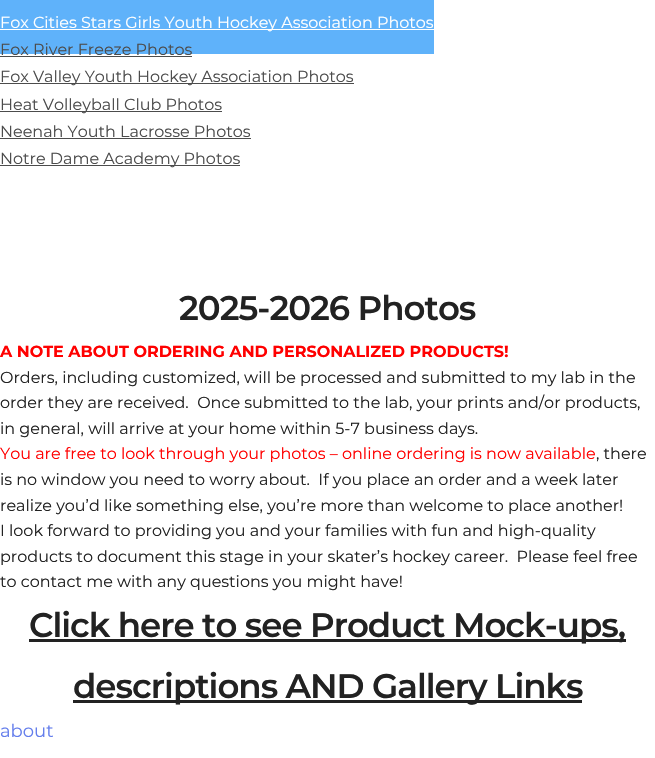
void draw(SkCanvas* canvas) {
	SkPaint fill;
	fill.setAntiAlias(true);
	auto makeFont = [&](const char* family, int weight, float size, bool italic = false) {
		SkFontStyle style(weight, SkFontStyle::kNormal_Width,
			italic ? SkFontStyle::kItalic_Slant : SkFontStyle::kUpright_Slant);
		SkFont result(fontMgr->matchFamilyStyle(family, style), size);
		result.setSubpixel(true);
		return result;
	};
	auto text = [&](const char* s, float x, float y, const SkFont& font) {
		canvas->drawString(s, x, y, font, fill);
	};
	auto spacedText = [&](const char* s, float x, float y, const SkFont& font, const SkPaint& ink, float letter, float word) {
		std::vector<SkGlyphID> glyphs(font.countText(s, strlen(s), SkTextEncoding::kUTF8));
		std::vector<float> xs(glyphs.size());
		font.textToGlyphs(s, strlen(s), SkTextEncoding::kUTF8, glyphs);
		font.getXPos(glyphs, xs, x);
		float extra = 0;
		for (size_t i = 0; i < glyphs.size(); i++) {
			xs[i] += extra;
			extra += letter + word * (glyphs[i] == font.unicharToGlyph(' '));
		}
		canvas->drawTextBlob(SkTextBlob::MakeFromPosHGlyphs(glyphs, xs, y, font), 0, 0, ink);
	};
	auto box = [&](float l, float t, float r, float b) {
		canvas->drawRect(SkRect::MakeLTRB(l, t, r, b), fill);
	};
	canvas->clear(0xFFFFFFFF);
	fill.setColor(0xFF5FB2FA);
	box(0, 0, 434, 54);
	fill.setColor(0xFFFFFFFF);
	box(0, 29, 434, 30);
	fill.setColor(0xFF4C4C4C);
	box(0, 56, 192, 57);
	box(0, 83, 354, 84);
	box(0, 111, 222, 112);
	box(0, 138, 251, 139);
	box(0, 165, 240, 166);
	fill.setColor(0xFF222222);
	box(29, 639, 626, 642);
	box(73, 700, 582, 703);
	auto font1 = makeFont("Montserrat", 400, 16);
	fill.setColor(0xFFFFFFFF);
	text("Fox Cities Stars Girls Youth Hockey Association Photos", 0, 28, font1);
	fill.setColor(0xFF4C4C4C);
	text("Fox River Freeze Photos", 0, 55, font1);
	text("Fox Valley Youth Hockey Association Photos", 0, 82, font1);
	text("Heat Volleyball Club Photos", 0, 110, font1);
	text("Neenah Youth Lacrosse Photos", 0, 137, font1);
	text("Notre Dame Academy Photos", 0, 164, font1);
	auto font2 = makeFont("Montserrat", 600, 34);
	fill.setColor(0xFF222222);
	spacedText("2025-2026 Photos", 179, 320, font2, fill, -1, 0);
	auto font3 = makeFont("Montserrat", 700, 16);
	fill.setColor(0xFFFF0000);
	text("A NOTE ABOUT ORDERING AND PERSONALIZED PRODUCTS!", 0, 357, font3);
	fill.setColor(0xFF222222);
	text("Orders, including customized, will be processed and submitted to my lab in the", 0, 383, font1);
	text("order they are received.  Once submitted to the lab, your prints and/or products,", 0, 408, font1);
	text("in general, will arrive at your home within 5-7 business days.", 0, 434, font1);
	fill.setColor(0xFFFF0000);
	text("You are free to look through your photos – online ordering is now available", 0, 459, font1);
	fill.setColor(0xFF222222);
	text(", there", 596, 459, font1);
	text("is no window you need to worry about.  If you place an order and a week later", 0, 485, font1);
	text("realize you’d like something else, you’re more than welcome to place another!", 0, 511, font1);
	text("I look forward to providing you and your families with fun and high-quality", 0, 536, font1);
	text("products to document this stage in your skater’s hockey career.  Please feel free", 0, 562, font1);
	text("to contact me with any questions you might have!", 0, 587, font1);
	spacedText("Click here to see Product Mock-ups,", 29, 637, font2, fill, -1, 0);
	spacedText("descriptions AND Gallery Links", 73, 698, font2, fill, -1, 0);
	auto font4 = makeFont("Montserrat", 400, 18);
	fill.setColor(0xFF637DEC);
	text("about", 0, 737, font4);
}
